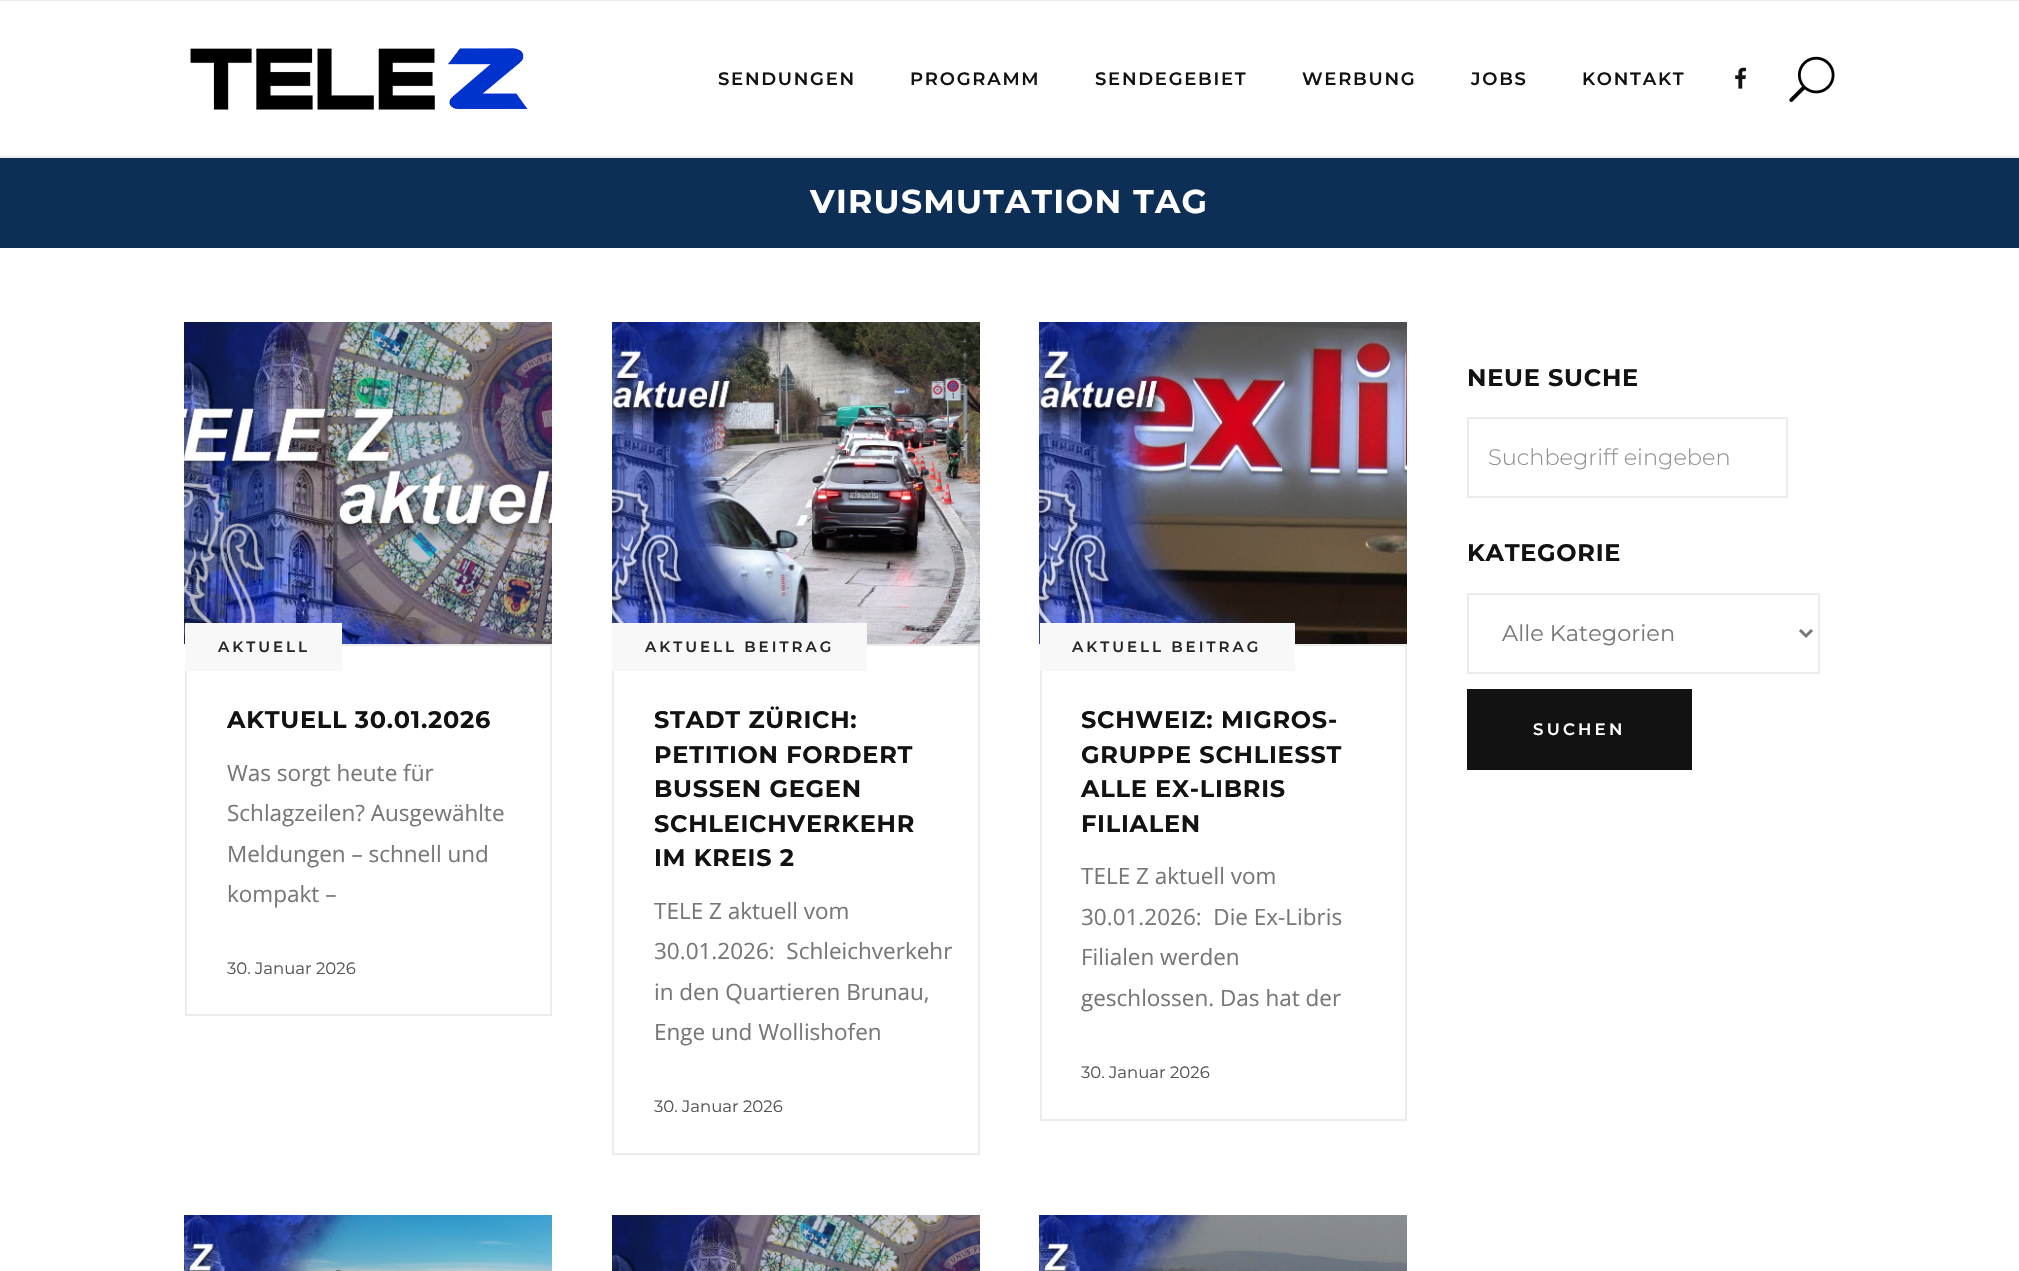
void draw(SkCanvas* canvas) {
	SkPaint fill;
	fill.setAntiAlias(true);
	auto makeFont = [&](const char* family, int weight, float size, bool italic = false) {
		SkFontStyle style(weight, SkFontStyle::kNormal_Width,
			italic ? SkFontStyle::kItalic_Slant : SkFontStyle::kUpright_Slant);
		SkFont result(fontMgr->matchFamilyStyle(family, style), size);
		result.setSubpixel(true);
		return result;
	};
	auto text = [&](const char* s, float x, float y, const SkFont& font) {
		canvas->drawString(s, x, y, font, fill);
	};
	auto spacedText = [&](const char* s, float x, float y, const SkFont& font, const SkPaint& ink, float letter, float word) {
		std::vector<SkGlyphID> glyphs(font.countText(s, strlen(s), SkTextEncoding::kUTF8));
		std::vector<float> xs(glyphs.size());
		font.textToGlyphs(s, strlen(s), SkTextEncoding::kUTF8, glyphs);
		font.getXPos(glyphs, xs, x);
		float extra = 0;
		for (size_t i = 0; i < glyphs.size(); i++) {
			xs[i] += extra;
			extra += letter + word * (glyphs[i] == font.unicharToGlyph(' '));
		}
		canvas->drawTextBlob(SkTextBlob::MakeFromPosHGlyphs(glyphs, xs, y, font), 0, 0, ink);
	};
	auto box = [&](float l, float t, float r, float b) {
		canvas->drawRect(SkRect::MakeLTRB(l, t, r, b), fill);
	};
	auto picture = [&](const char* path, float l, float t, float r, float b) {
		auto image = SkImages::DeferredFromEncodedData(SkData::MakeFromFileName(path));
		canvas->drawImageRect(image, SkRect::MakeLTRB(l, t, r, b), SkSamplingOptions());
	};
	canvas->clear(0xFFFFFFFF);
	fill.setColor(0xFFEBEBEB);
	box(0, 0, 2019, 1);
	fill.setColor(0xFFEDEDED);
	box(0, 156, 2019, 158);
	picture("image0.png", 190, 48, 528, 110);
	picture("image1.png", 1735, 67, 1747, 89);
	picture("image2.png", 1789, 56, 1835, 102);
	fill.setColor(0xFF0D2F56);
	box(0, 158, 2019, 248);
	fill.setStyle(SkPaint::kStroke_Style);
	fill.setStrokeWidth(2);
	fill.setColor(0xFFEBEBEB);
	canvas->drawRect(SkRect::MakeLTRB(1468, 418, 1787, 497), fill);
	canvas->drawRect(SkRect::MakeLTRB(1468, 594, 1819, 673), fill);
	fill.setStrokeWidth(3);
	fill.setColor(0xFF777777);
	canvas->drawPath(SkPathBuilder().moveTo(1800, 630).lineTo(1806, 636).lineTo(1812, 630).detach(), fill);
	fill.setStyle(SkPaint::kFill_Style);
	fill.setColor(0xFF121212);
	box(1467, 689, 1692, 770);
	picture("image3.png", 184, 322, 552, 644);
	fill.setStyle(SkPaint::kStroke_Style);
	fill.setStrokeWidth(2);
	fill.setColor(0xFFEBEBEB);
	canvas->drawRect(SkRect::MakeLTRB(186, 645, 551, 1015), fill);
	fill.setStyle(SkPaint::kFill_Style);
	fill.setColor(0xFFF8F8F8);
	box(185, 623, 342, 671);
	picture("image4.png", 612, 322, 980, 644);
	fill.setStyle(SkPaint::kStroke_Style);
	fill.setColor(0xFFEBEBEB);
	canvas->drawRect(SkRect::MakeLTRB(613, 645, 979, 1154), fill);
	fill.setStyle(SkPaint::kFill_Style);
	fill.setColor(0xFFF8F8F8);
	box(612, 623, 867, 671);
	picture("image5.png", 1039, 322, 1407, 644);
	fill.setStyle(SkPaint::kStroke_Style);
	fill.setColor(0xFFEBEBEB);
	canvas->drawRect(SkRect::MakeLTRB(1041, 645, 1406, 1120), fill);
	fill.setStyle(SkPaint::kFill_Style);
	fill.setColor(0xFFF8F8F8);
	box(1040, 623, 1295, 671);
	picture("image6.png", 184, 1215, 552, 1271);
	picture("image7.png", 612, 1215, 980, 1271);
	picture("image8.png", 1039, 1215, 1407, 1271);
	auto font1 = makeFont("Montserrat", 600, 18);
	fill.setColor(0xFF121212);
	spacedText("SENDUNGEN", 718, 85, font1, fill, 1.75f, 0);
	spacedText("PROGRAMM", 910, 85, font1, fill, 1.75f, 0);
	spacedText("SENDEGEBIET", 1095, 85, font1, fill, 1.75f, 0);
	spacedText("WERBUNG", 1302, 85, font1, fill, 1.75f, 0);
	spacedText("JOBS", 1471, 85, font1, fill, 1.75f, 0);
	spacedText("KONTAKT", 1582, 85, font1, fill, 1.75f, 0);
	auto font2 = makeFont("Montserrat", 700, 33);
	fill.setColor(0xFFFFFFFF);
	spacedText("VIRUSMUTATION TAG", 810, 213, font2, fill, 1.3f, 0);
	auto font3 = makeFont("Montserrat", 700, 24);
	fill.setColor(0xFF121212);
	spacedText("NEUE SUCHE", 1467, 386, font3, fill, 0.75f, 0);
	auto font4 = makeFont("Montserrat", 300, 22.5f);
	fill.setColor(0xFF909090);
	text("Suchbegriff eingeben", 1488, 465, font4);
	fill.setColor(0xFF121212);
	spacedText("KATEGORIE", 1467, 561, font3, fill, 0.75f, 0);
	auto font5 = makeFont("Montserrat", 400, 22.5f);
	fill.setColor(0xFF777777);
	text("Alle Kategorien", 1502, 641, font5);
	auto font6 = makeFont("Montserrat", 600, 16.5f);
	fill.setColor(0xFFFFFFFF);
	spacedText("SUCHEN", 1533, 735, font6, fill, 3.25f, 0);
	auto font7 = makeFont("Montserrat", 600, 15);
	fill.setColor(0xFF262827);
	spacedText("AKTUELL", 218, 652, font7, fill, 3, 0);
	fill.setColor(0xFF121212);
	spacedText("AKTUELL 30.01.2026", 227, 728, font3, fill, 0.75f, 0);
	auto font8 = makeFont("Open Sans", 400, 22.5f);
	fill.setColor(0xFF777777);
	text("Was sorgt heute für", 227, 781, font8);
	text("Schlagzeilen? Ausgewählte", 227, 821, font8);
	text("Meldungen – schnell und", 227, 862, font8);
	text("kompakt –", 227, 902, font8);
	auto font9 = makeFont("Montserrat", 400, 16.5f);
	fill.setColor(0xFF545454);
	text("30. Januar 2026", 227, 974, font9);
	fill.setColor(0xFF262827);
	spacedText("AKTUELL BEITRAG", 645, 652, font7, fill, 3, 0);
	fill.setColor(0xFF121212);
	spacedText("STADT ZÜRICH:", 654, 728, font3, fill, 0.75f, 0);
	spacedText("PETITION FORDERT", 654, 763, font3, fill, 0.75f, 0);
	spacedText("BUSSEN GEGEN", 654, 797, font3, fill, 0.75f, 0);
	spacedText("SCHLEICHVERKEHR", 654, 832, font3, fill, 0.75f, 0);
	spacedText("IM KREIS 2", 654, 866, font3, fill, 0.75f, 0);
	fill.setColor(0xFF777777);
	text("TELE Z aktuell vom", 654, 919, font8);
	text("30.01.2026:  Schleichverkehr", 654, 959, font8);
	text("in den Quartieren Brunau,", 654, 1000, font8);
	text("Enge und Wollishofen", 654, 1040, font8);
	fill.setColor(0xFF545454);
	text("30. Januar 2026", 654, 1112, font9);
	fill.setColor(0xFF262827);
	spacedText("AKTUELL BEITRAG", 1072, 652, font7, fill, 3, 0);
	fill.setColor(0xFF121212);
	spacedText("SCHWEIZ: MIGROS-", 1081, 728, font3, fill, 0.75f, 0);
	spacedText("GRUPPE SCHLIESST", 1081, 763, font3, fill, 0.75f, 0);
	spacedText("ALLE EX-LIBRIS", 1081, 797, font3, fill, 0.75f, 0);
	spacedText("FILIALEN", 1081, 832, font3, fill, 0.75f, 0);
	fill.setColor(0xFF777777);
	text("TELE Z aktuell vom", 1081, 884, font8);
	text("30.01.2026:  Die Ex-Libris", 1081, 925, font8);
	text("Filialen werden", 1081, 965, font8);
	text("geschlossen. Das hat der", 1081, 1006, font8);
	fill.setColor(0xFF545454);
	text("30. Januar 2026", 1081, 1078, font9);
}
